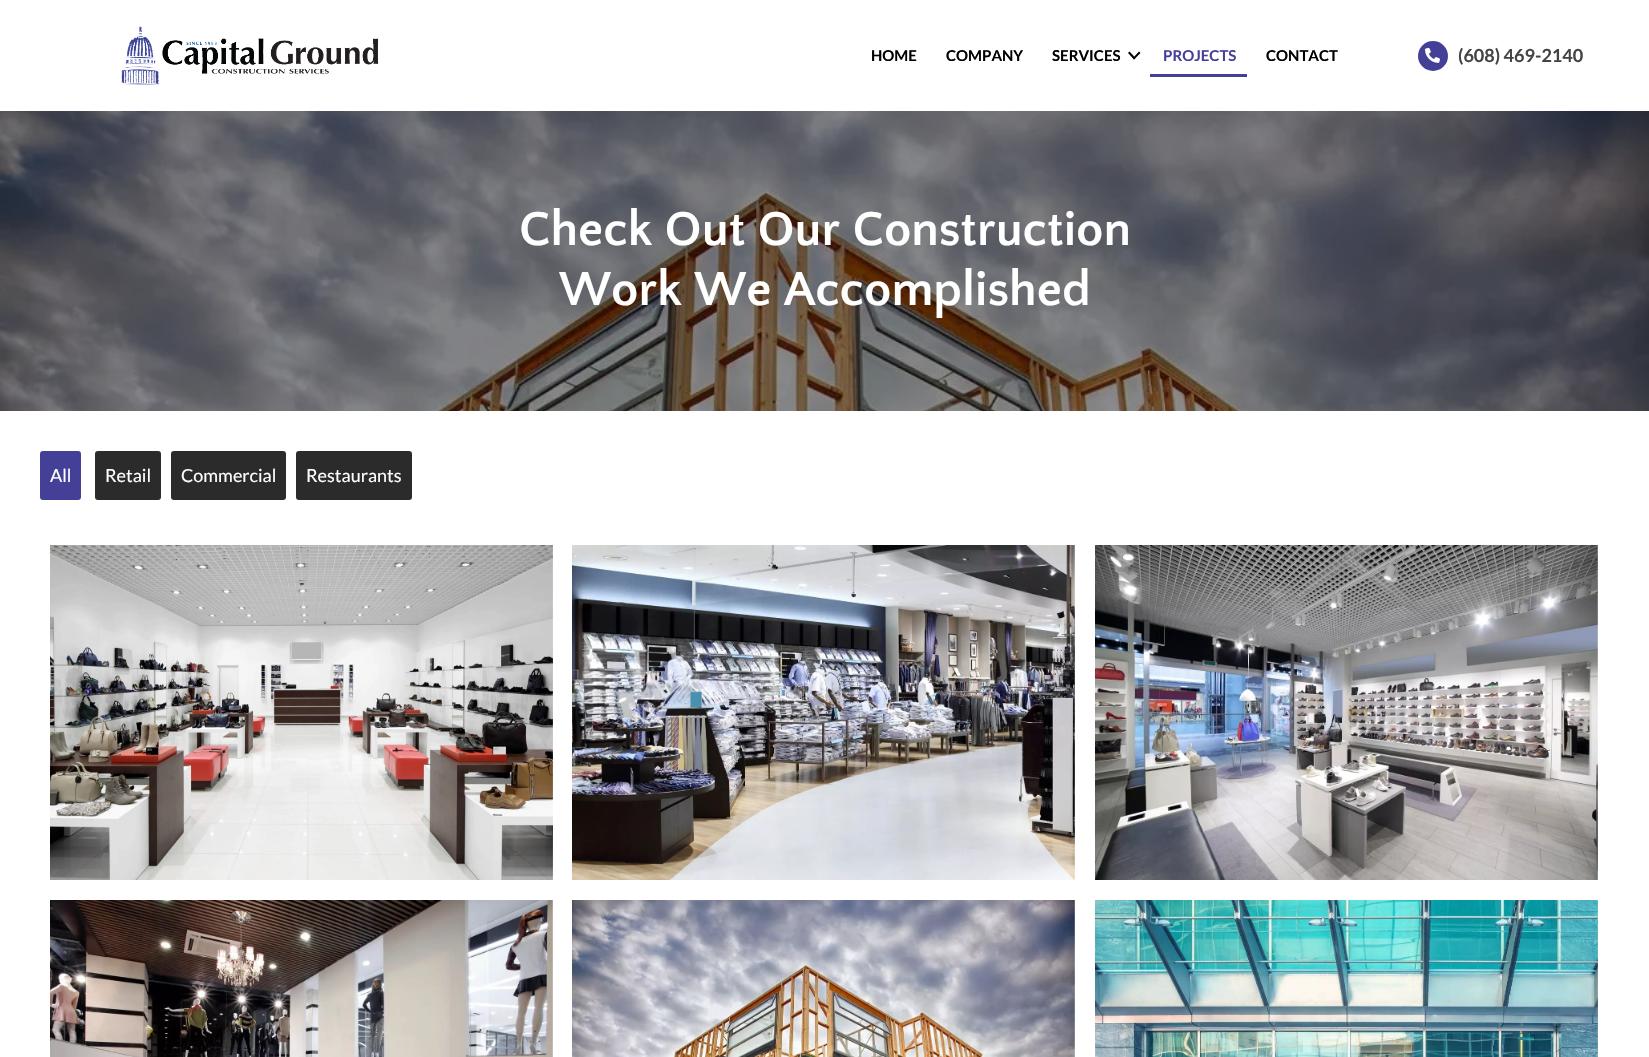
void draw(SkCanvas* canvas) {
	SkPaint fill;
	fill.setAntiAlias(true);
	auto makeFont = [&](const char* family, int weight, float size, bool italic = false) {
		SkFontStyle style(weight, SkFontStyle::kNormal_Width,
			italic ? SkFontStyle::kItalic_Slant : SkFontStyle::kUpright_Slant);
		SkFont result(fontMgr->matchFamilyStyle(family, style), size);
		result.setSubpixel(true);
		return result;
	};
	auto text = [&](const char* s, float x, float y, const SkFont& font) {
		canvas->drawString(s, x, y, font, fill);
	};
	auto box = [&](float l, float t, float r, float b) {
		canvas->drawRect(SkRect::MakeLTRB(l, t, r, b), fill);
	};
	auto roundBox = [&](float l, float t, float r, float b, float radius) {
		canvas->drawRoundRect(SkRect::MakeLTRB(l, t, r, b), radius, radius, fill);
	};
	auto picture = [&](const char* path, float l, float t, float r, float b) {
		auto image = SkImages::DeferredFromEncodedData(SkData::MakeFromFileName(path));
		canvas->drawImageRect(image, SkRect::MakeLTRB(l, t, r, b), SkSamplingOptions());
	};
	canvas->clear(0xFFFFFFFF);
	picture("image0.png", 121, 26, 379, 85);
	fill.setColor(0xFF000000);
	canvas->drawPath(SkPathBuilder().moveTo(1139, 51.5f).lineTo(1140.5f, 53).lineTo(1134, 59.5f).lineTo(1133, 58).close().detach(), fill);
	canvas->drawPath(SkPathBuilder().moveTo(1129.5f, 51.5f).lineTo(1135.5f, 58).lineTo(1134, 59.5f).lineTo(1128, 53).close().detach(), fill);
	fill.setColor(0xFF444098);
	box(1150, 74, 1247, 77);
	canvas->drawCircle(1433, 56, 15, fill);
	picture("image1.png", 1425, 47, 1440, 63);
	picture("image2.png", 0, 111, 1649, 411);
	roundBox(40, 451, 81, 500, 3);
	fill.setColor(0xFF2B2B2B);
	roundBox(95, 451, 161, 500, 3);
	roundBox(171, 451, 286, 500, 3);
	roundBox(296, 451, 412, 500, 3);
	picture("image3.png", 50, 545, 553, 880);
	picture("image4.png", 572, 545, 1075, 880);
	picture("image5.png", 1095, 545, 1598, 880);
	picture("image6.png", 50, 900, 553, 1057);
	picture("image7.png", 572, 900, 1075, 1057);
	picture("image8.png", 1095, 900, 1598, 1057);
	auto font1 = makeFont("Lato", 700, 15);
	fill.setColor(0xFF000000);
	text("HOME", 871, 61, font1);
	text("COMPANY", 946, 61, font1);
	text("SERVICES", 1052, 61, font1);
	fill.setColor(0xFF444098);
	text("PROJECTS", 1163, 61, font1);
	fill.setColor(0xFF000000);
	text("CONTACT", 1266, 61, font1);
	auto font2 = makeFont("Lato", 700, 18);
	fill.setColor(0xFF444444);
	text("(608) 469-2140", 1458, 62, font2);
	auto font3 = makeFont("Quattrocento Sans", 700, 50);
	fill.setColor(0xFFFFFFFF);
	text("Check Out Our Construction", 519, 245, font3);
	text("Work We Accomplished", 559, 305, font3);
	auto font4 = makeFont("Lato", 400, 18);
	text("All", 50, 482, font4);
	text("Retail", 105, 482, font4);
	text("Commercial", 181, 482, font4);
	text("Restaurants", 306, 482, font4);
}
